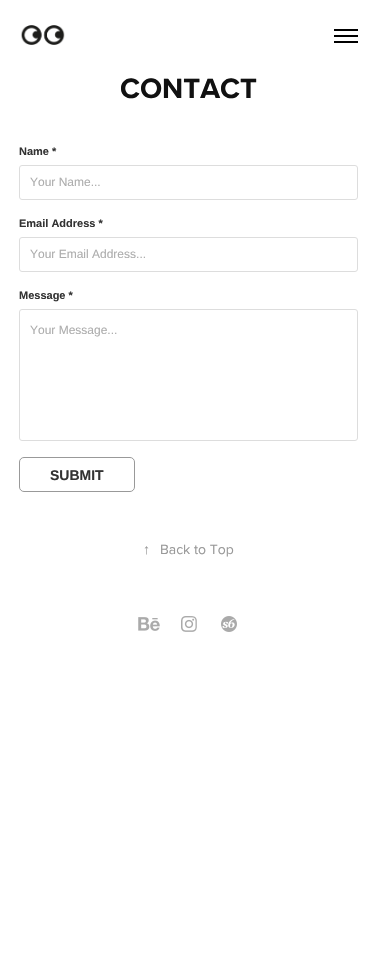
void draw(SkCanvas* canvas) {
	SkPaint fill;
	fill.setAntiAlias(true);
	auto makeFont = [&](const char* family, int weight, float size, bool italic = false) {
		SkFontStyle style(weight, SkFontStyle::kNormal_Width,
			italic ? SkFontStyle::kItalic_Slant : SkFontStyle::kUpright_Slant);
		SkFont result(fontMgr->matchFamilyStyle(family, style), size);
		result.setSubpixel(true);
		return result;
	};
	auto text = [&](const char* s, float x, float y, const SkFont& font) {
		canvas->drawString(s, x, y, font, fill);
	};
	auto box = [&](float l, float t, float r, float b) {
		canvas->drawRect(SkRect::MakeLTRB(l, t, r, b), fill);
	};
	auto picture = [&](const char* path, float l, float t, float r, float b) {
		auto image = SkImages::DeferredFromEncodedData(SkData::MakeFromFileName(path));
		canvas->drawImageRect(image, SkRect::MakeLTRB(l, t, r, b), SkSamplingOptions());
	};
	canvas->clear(0xFFFFFFFF);
	picture("image0.png", 21, 25, 65, 45);
	fill.setColor(0xFF000000);
	box(334, 29, 358, 31);
	box(334, 35, 358, 37);
	box(334, 41, 358, 43);
	fill.setStyle(SkPaint::kStroke_Style);
	fill.setStrokeWidth(1);
	fill.setColor(0xFFDDDDDD);
	canvas->drawRoundRect(SkRect::MakeLTRB(19.5f, 165.5f, 357.5f, 199.5f), 2.5f, 2.5f, fill);
	canvas->drawRoundRect(SkRect::MakeLTRB(19.5f, 237.5f, 357.5f, 271.5f), 2.5f, 2.5f, fill);
	canvas->drawRoundRect(SkRect::MakeLTRB(19.5f, 309.5f, 357.5f, 440.5f), 2.5f, 2.5f, fill);
	fill.setColor(0xFF999999);
	canvas->drawRoundRect(SkRect::MakeLTRB(19.5f, 457.5f, 134.5f, 491.5f), 4.5f, 4.5f, fill);
	picture("image1.png", 138, 617, 160, 631);
	picture("image2.png", 181, 616, 197, 632);
	picture("image3.png", 221, 616, 237, 632);
	auto font1 = makeFont("Proxima Nova", 700, 29);
	fill.setStyle(SkPaint::kFill_Style);
	fill.setColor(0xFF111111);
	text("CONTACT", 120, 98, font1);
	auto font2 = makeFont("Liberation Sans", 700, 11);
	fill.setColor(0xFF333333);
	text("Name *", 19, 155, font2);
	auto font3 = makeFont("Liberation Sans", 400, 12);
	fill.setColor(0xFFADADAD);
	text("Your Name...", 30, 186, font3);
	fill.setColor(0xFF333333);
	text("Email Address *", 19, 227, font2);
	fill.setColor(0xFFADADAD);
	text("Your Email Address...", 30, 258, font3);
	fill.setColor(0xFF333333);
	text("Message *", 19, 299, font2);
	fill.setColor(0xFFADADAD);
	text("Your Message...", 30, 334, font3);
	auto font4 = makeFont("Liberation Sans", 700, 14);
	fill.setColor(0xFF333333);
	text("SUBMIT", 50, 480, font4);
	auto font5 = makeFont("Liberation Serif", 400, 14);
	fill.setColor(0xFF999999);
	text("↑", 143, 554, font5);
	auto font6 = makeFont("Proxima Nova", 400, 14);
	text("Back to Top", 160, 554, font6);
}
